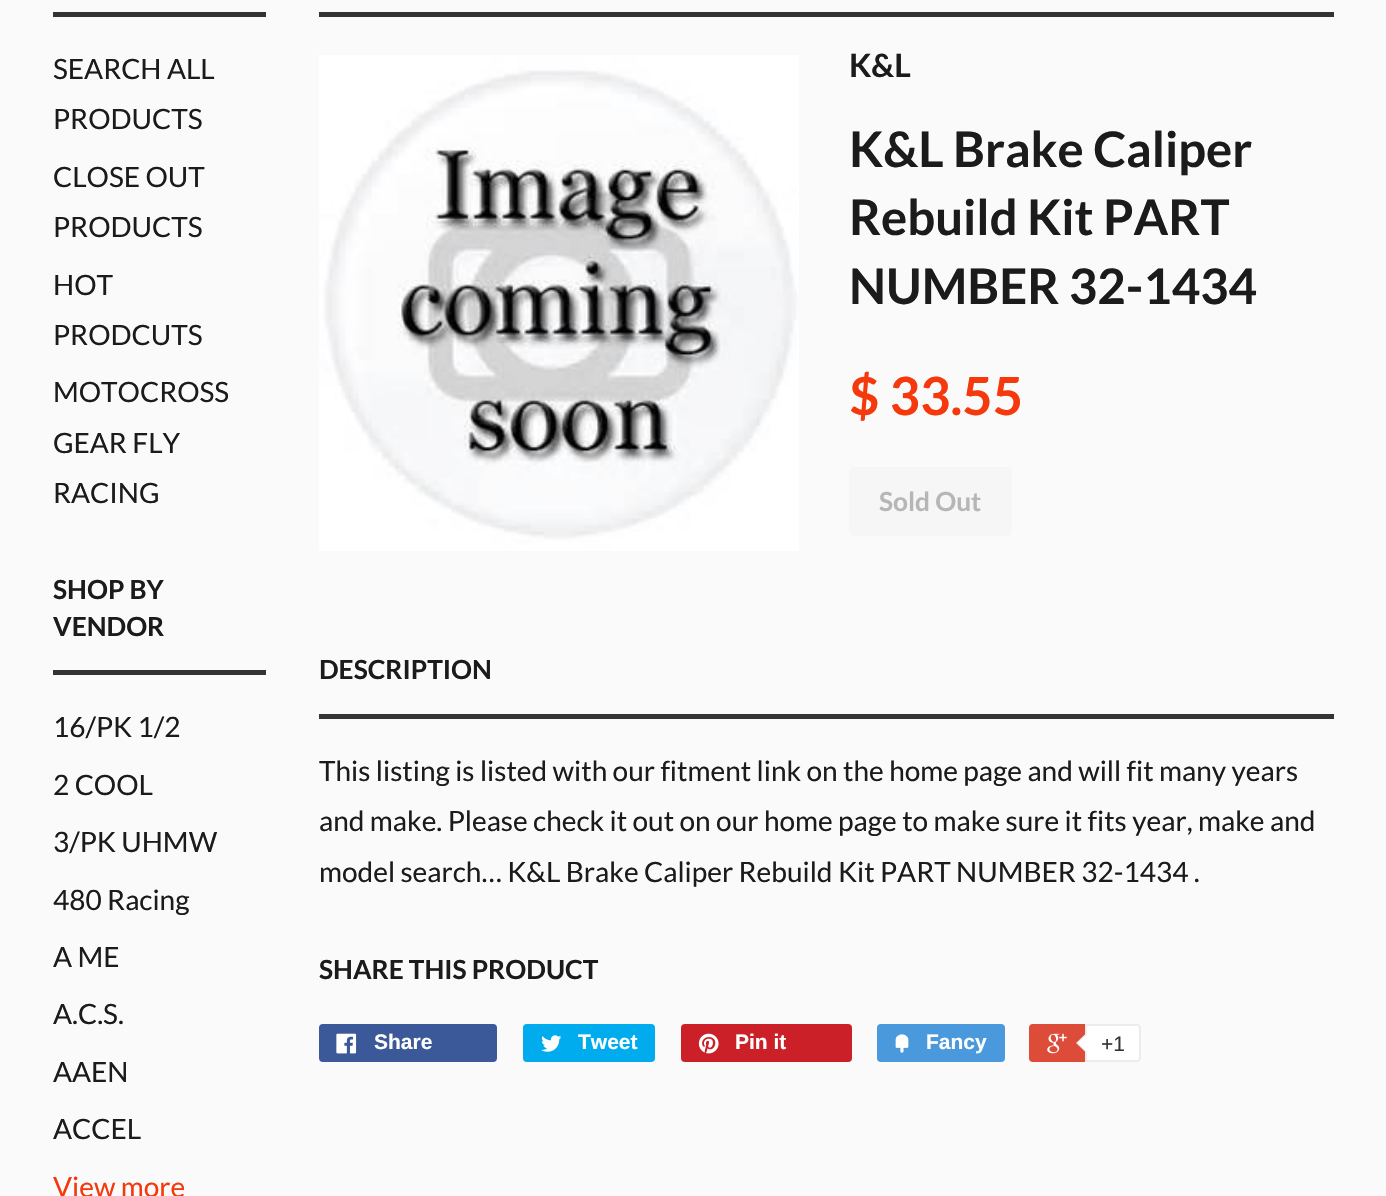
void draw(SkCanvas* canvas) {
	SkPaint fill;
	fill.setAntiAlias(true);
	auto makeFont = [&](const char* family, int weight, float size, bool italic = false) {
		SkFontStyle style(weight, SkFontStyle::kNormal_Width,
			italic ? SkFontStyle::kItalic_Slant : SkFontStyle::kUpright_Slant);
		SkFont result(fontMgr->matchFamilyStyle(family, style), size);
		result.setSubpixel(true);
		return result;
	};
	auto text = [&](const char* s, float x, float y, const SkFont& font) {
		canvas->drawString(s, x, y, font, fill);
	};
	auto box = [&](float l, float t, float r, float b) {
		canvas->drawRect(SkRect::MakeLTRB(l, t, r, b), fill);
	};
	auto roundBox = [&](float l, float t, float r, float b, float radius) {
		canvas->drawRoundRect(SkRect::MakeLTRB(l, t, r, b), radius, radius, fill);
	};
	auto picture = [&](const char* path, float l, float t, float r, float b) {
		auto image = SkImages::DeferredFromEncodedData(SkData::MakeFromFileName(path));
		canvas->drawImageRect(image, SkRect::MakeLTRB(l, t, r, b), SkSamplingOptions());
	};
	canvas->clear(0xFFFAFAFA);
	fill.setColor(0xFF343434);
	box(53, 12, 266, 17);
	box(53, 670, 266, 675);
	box(319, 12, 1334, 17);
	picture("image0.png", 319, 55, 799, 551);
	fill.setColor(0xFFF6F6F6);
	roundBox(849, 467, 1012, 536, 5);
	fill.setColor(0xFF343434);
	box(319, 714, 1334, 719);
	fill.setColor(0xFF3B5998);
	roundBox(319, 1024, 497, 1062, 4);
	picture("image1.png", 336, 1033, 357, 1054);
	fill.setColor(0xFF00ACED);
	roundBox(523, 1024, 655, 1062, 4);
	picture("image2.png", 541, 1035, 562, 1052);
	fill.setColor(0xFFCB2027);
	roundBox(681, 1024, 852, 1062, 4);
	picture("image3.png", 698, 1033, 719, 1054);
	fill.setColor(0xFF4999DC);
	roundBox(877, 1024, 1005, 1062, 4);
	picture("image4.png", 895, 1034, 909, 1053);
	fill.setColor(0xFFDD4B39);
	roundBox(1029, 1024, 1138, 1062, 4);
	picture("image5.png", 1047, 1033, 1067, 1054);
	fill.setColor(0xFFFFFFFF);
	canvas->drawPath(SkPathBuilder().moveTo(1086, 1025).lineTo(1137, 1025).cubicTo(1138.5f, 1025, 1140, 1026.5f, 1140, 1028).lineTo(1140, 1058).cubicTo(1140, 1059.5f, 1138.5f, 1061, 1137, 1061).lineTo(1086, 1061).close().detach(), fill);
	fill.setStyle(SkPaint::kStroke_Style);
	fill.setStrokeWidth(2);
	fill.setColor(0xFFECECEC);
	canvas->drawPath(SkPathBuilder().moveTo(1086, 1025).lineTo(1137, 1025).cubicTo(1138.5f, 1025, 1140, 1026.5f, 1140, 1028).lineTo(1140, 1058).cubicTo(1140, 1059.5f, 1138.5f, 1061, 1137, 1061).lineTo(1086, 1061).close().detach(), fill);
	fill.setStyle(SkPaint::kFill_Style);
	canvas->drawPath(SkPathBuilder().moveTo(1087, 1032.5f).lineTo(1087, 1053.5f).lineTo(1076, 1043).close().detach(), fill);
	fill.setColor(0xFFFFFFFF);
	canvas->drawPath(SkPathBuilder().moveTo(1088.5f, 1032.5f).lineTo(1088.5f, 1053.5f).lineTo(1078, 1043).close().detach(), fill);
	auto font1 = makeFont("Lato", 400, 28);
	fill.setColor(0xFF1B1B1B);
	text("SEARCH ALL", 53, 79, font1);
	text("PRODUCTS", 53, 129, font1);
	text("CLOSE OUT", 53, 187, font1);
	text("PRODUCTS", 53, 237, font1);
	text("HOT", 53, 295, font1);
	text("PRODCUTS", 53, 345, font1);
	text("MOTOCROSS", 53, 402, font1);
	text("GEAR FLY", 53, 453, font1);
	text("RACING", 53, 503, font1);
	auto font2 = makeFont("Lato", 700, 26.25f);
	text("SHOP BY", 53, 599, font2);
	text("VENDOR", 53, 636, font2);
	text("16/PK 1/2", 53, 737, font1);
	text("2 COOL", 53, 795, font1);
	text("3/PK UHMW", 53, 852, font1);
	text("480 Racing", 53, 910, font1);
	text("A ME", 53, 967, font1);
	text("A.C.S.", 53, 1024, font1);
	text("AAEN", 53, 1082, font1);
	text("ACCEL", 53, 1139, font1);
	fill.setColor(0xFFF5390C);
	text("View more", 53, 1197, font1);
	auto font3 = makeFont("Lato", 700, 32);
	fill.setColor(0xFF1B1B1B);
	text("K&L", 849, 77, font3);
	auto font4 = makeFont("Lato", 700, 49);
	text("K&L Brake Caliper", 849, 167, font4);
	text("Rebuild Kit PART", 849, 235, font4);
	text("NUMBER 32-1434", 849, 304, font4);
	auto font5 = makeFont("Lato", 700, 52.5f);
	fill.setColor(0xFFF5390C);
	text("$ 33.55", 849, 415, font5);
	fill.setColor(0xFFB6B6B6);
	text("Sold Out", 879, 511, font2);
	fill.setColor(0xFF1B1B1B);
	text("DESCRIPTION", 319, 679, font2);
	text("This listing is listed with our fitment link on the home page and will fit many years", 319, 781, font1);
	text("and make. Please check it out on our home page to make sure it fits year, make and", 319, 831, font1);
	text("model search… K&L Brake Caliper Rebuild Kit PART NUMBER 32-1434 .", 319, 882, font1);
	text("SHARE THIS PRODUCT", 319, 979, font2);
	auto font6 = makeFont("Liberation Sans", 700, 21);
	fill.setColor(0xFFFFFFFF);
	text("Share", 374, 1049, font6);
	text("Tweet", 578, 1049, font6);
	text("Pin it", 735, 1049, font6);
	text("Fancy", 926, 1049, font6);
	auto font7 = makeFont("Liberation Sans", 400, 21);
	fill.setColor(0xFF333333);
	text("+1", 1101, 1051, font7);
}
